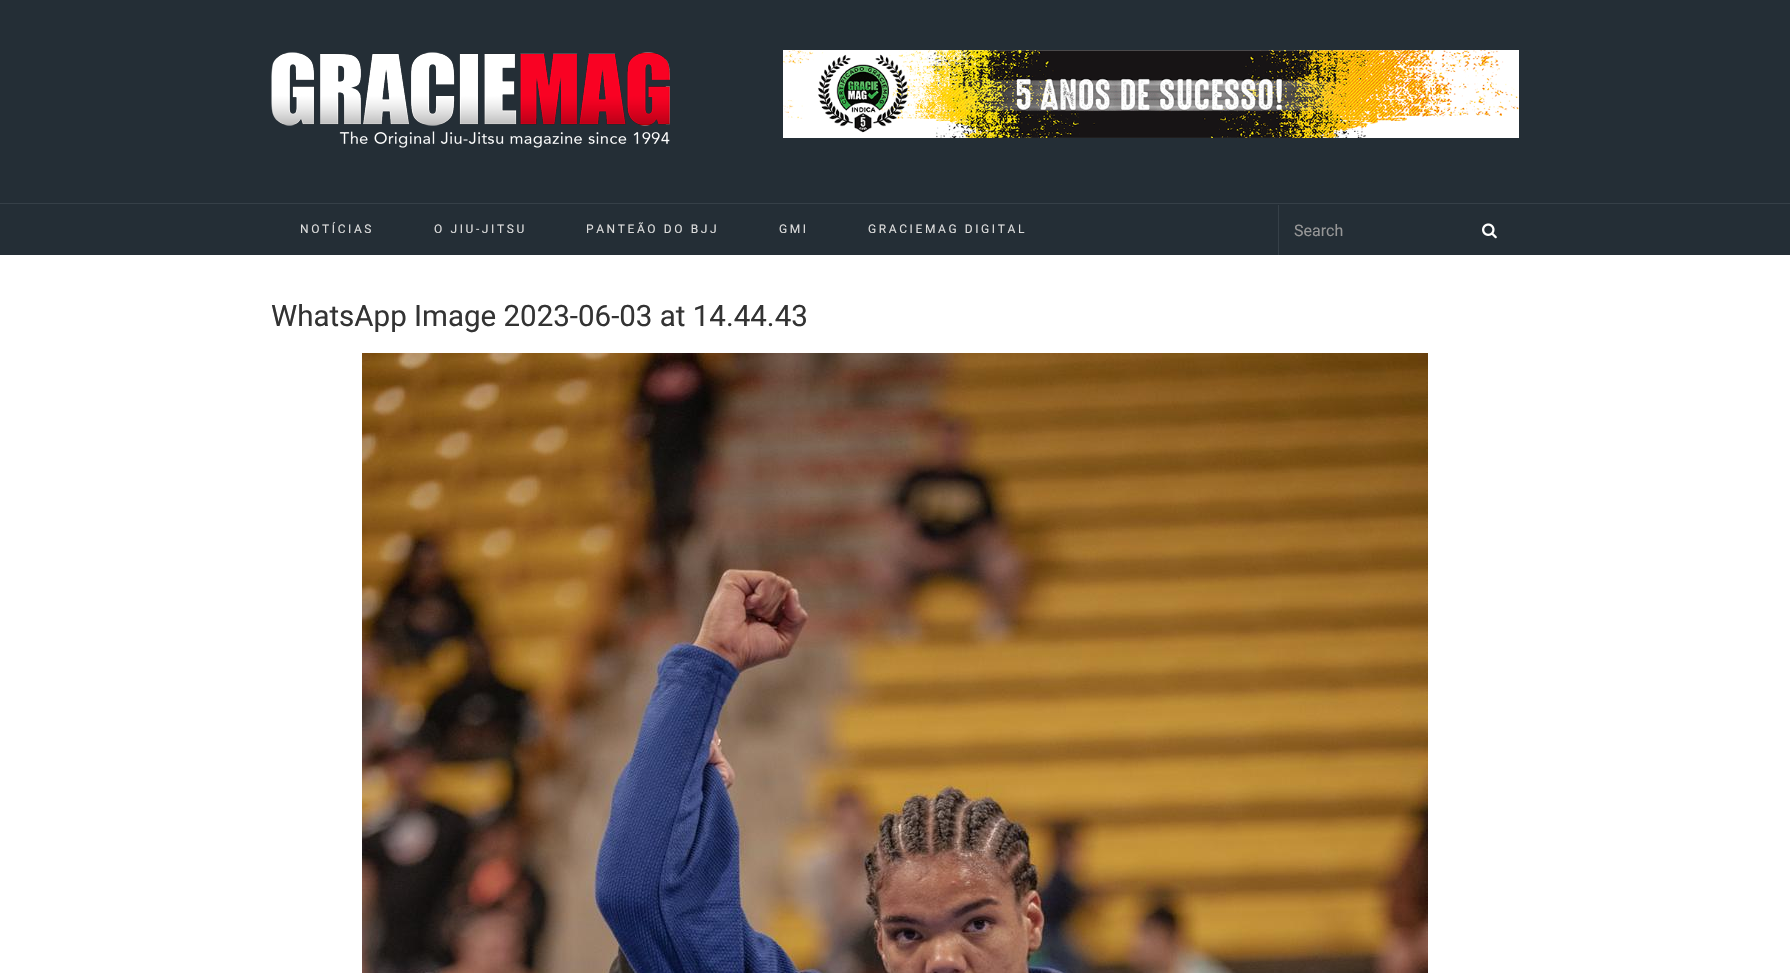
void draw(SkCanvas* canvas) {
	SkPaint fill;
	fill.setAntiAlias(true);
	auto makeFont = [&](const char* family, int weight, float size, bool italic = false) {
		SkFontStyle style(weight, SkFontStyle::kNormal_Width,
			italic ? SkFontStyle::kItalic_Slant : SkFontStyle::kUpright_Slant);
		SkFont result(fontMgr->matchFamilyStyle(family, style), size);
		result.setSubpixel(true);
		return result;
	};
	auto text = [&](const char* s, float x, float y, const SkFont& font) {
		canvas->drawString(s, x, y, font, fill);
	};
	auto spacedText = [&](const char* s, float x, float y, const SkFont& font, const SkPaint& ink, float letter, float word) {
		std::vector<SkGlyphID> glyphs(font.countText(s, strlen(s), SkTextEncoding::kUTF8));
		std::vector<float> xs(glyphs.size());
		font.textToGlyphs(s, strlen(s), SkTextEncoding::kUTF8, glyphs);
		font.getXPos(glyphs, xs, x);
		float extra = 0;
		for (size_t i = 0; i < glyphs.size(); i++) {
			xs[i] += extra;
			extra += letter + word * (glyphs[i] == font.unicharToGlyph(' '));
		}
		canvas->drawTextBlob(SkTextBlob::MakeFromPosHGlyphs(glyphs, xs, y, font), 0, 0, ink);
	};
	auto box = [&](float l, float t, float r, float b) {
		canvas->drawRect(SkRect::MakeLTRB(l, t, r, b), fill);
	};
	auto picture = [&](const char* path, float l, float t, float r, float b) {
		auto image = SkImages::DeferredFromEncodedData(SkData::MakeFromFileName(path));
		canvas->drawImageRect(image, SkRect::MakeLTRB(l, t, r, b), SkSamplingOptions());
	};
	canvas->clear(0xFFFFFFFF);
	fill.setColor(0xFF242E36);
	box(0, 0, 1790, 255);
	picture("image0.png", 271, 52, 670, 148);
	picture("image1.png", 783, 50, 1519, 138);
	fill.setColor(0xFF364048);
	box(0, 203, 1790, 204);
	picture("image2.png", 1482, 223, 1497, 239);
	box(1278, 205, 1279, 255);
	picture("image3.png", 362, 353, 1428, 973);
	auto font1 = makeFont("Roboto", 400, 12);
	fill.setColor(0xFFDCDCDC);
	spacedText("NOTÍCIAS", 300, 233, font1, fill, 2.6f, 0);
	spacedText("O JIU-JITSU", 434, 233, font1, fill, 2.6f, 0);
	spacedText("PANTEÃO DO BJJ", 586, 233, font1, fill, 2.6f, 0);
	spacedText("GMI", 779, 233, font1, fill, 2.6f, 0);
	spacedText("GRACIEMAG DIGITAL", 868, 233, font1, fill, 2.6f, 0);
	auto font2 = makeFont("Roboto", 400, 16);
	fill.setColor(0xFF979797);
	text("Search", 1294, 236, font2);
	auto font3 = makeFont("Roboto", 400, 29.5f);
	fill.setColor(0xFF333333);
	text("WhatsApp Image 2023-06-03 at 14.44.43", 271, 326, font3);
}
